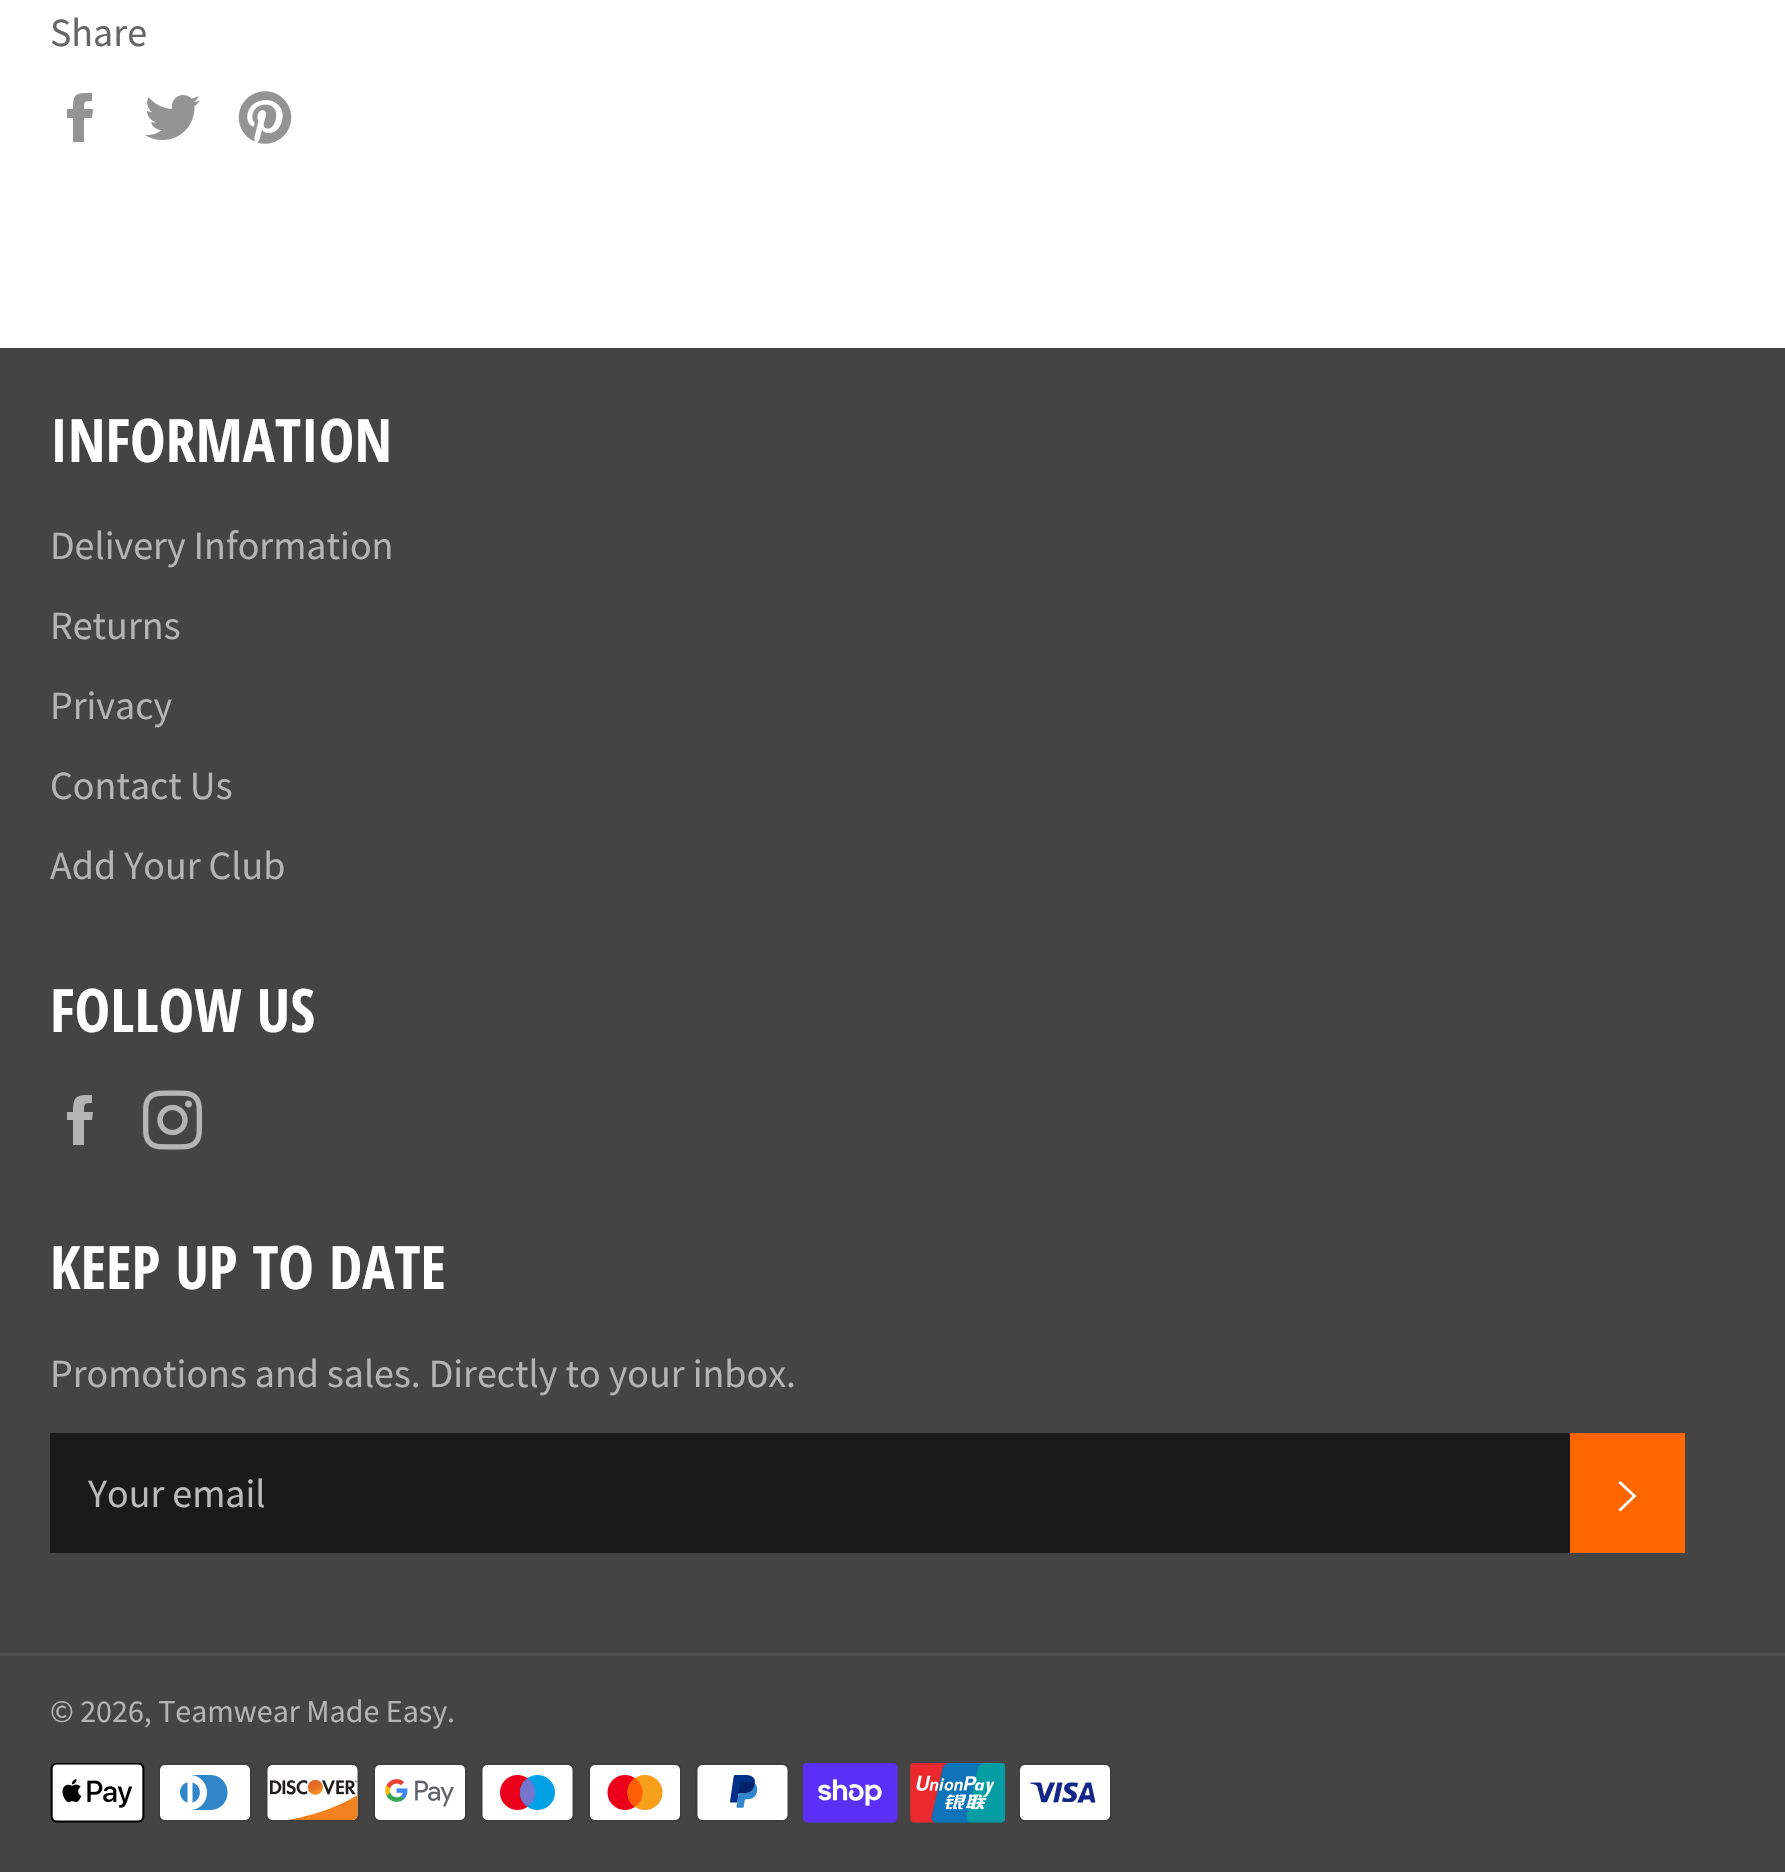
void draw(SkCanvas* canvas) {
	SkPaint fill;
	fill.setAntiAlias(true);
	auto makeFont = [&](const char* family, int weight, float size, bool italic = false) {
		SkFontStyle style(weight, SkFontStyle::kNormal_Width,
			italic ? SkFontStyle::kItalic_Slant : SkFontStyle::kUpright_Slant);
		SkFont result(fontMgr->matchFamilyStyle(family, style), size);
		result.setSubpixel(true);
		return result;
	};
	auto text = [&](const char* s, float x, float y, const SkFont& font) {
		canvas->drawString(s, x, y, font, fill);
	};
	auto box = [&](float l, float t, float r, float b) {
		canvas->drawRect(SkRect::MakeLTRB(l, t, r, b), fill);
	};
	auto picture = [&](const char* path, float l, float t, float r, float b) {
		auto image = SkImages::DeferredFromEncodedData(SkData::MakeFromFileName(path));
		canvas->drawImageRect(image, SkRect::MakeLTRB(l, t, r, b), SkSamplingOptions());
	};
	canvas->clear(0xFFFFFFFF);
	fill.setColor(0xFF949494);
	canvas->drawPath(SkPathBuilder().moveTo(84, 109).cubicTo(84, 101, 84, 101, 92, 101).lineTo(92, 93).cubicTo(77, 93, 73, 92, 73, 109).lineTo(67, 109).lineTo(67, 118).lineTo(73, 118).lineTo(73, 142).lineTo(84, 142).lineTo(84, 118).lineTo(92, 118).lineTo(93, 109).close().detach(), fill);
	picture("image0.png", 145, 95, 200, 140);
	picture("image1.png", 238, 91, 292, 144);
	fill.setColor(0xFF444444);
	box(0, 348, 1785, 1872);
	fill.setColor(0xFFB4B4B4);
	canvas->drawPath(SkPathBuilder().moveTo(84, 1112).cubicTo(84, 1103, 84, 1103, 92, 1103).lineTo(92, 1095).cubicTo(77, 1095, 73, 1095, 73, 1112).lineTo(67, 1112).lineTo(67, 1120).lineTo(73, 1120).lineTo(73, 1145).lineTo(84, 1145).lineTo(84, 1120).lineTo(92, 1120).lineTo(93, 1112).close().detach(), fill);
	picture("image2.png", 143, 1090, 203, 1150);
	fill.setColor(0xFF1A1A1A);
	box(50, 1433, 1570, 1553);
	fill.setColor(0xFFFF6600);
	box(1570, 1433, 1685, 1553);
	fill.setColor(0xFFFFFFFF);
	canvas->drawPath(SkPathBuilder().moveTo(1618.5f, 1483).lineTo(1620.5f, 1481).lineTo(1636.5f, 1496).lineTo(1620.5f, 1511.5f).lineTo(1618.5f, 1509.5f).lineTo(1632.5f, 1496).close().detach(), fill);
	fill.setColor(0xFF515151);
	box(0, 1653, 1785, 1656);
	picture("image3.png", 50, 1763, 145, 1823);
	picture("image4.png", 158, 1763, 252, 1822);
	picture("image5.png", 265, 1763, 360, 1822);
	picture("image6.png", 373, 1763, 467, 1822);
	picture("image7.png", 480, 1763, 575, 1822);
	picture("image8.png", 588, 1763, 682, 1822);
	picture("image9.png", 695, 1763, 790, 1822);
	picture("image10.png", 803, 1763, 898, 1823);
	picture("image11.png", 910, 1763, 1005, 1823);
	picture("image12.png", 1018, 1763, 1112, 1822);
	auto font1 = makeFont("Source Sans Pro", 400, 40);
	fill.setColor(0xFF666666);
	text("Share", 50, 46, font1);
	auto font2 = makeFont("Open Sans Condensed", 700, 60);
	fill.setColor(0xFFFFFFFF);
	text("INFORMATION", 50, 462, font2);
	fill.setColor(0xFFB4B4B4);
	text("Delivery Information", 50, 559, font1);
	text("Returns", 50, 639, font1);
	text("Privacy", 50, 719, font1);
	text("Contact Us", 50, 799, font1);
	text("Add Your Club", 50, 879, font1);
	fill.setColor(0xFFFFFFFF);
	text("FOLLOW US", 50, 1032, font2);
	text("KEEP UP TO DATE", 50, 1289, font2);
	fill.setColor(0xFFB4B4B4);
	text("Promotions and sales. Directly to your inbox.", 50, 1387, font1);
	fill.setColor(0xFFBABABA);
	text("Your email", 88, 1507, font1);
	auto font3 = makeFont("Source Sans Pro", 400, 32);
	fill.setColor(0xFFB4B4B4);
	text("© 2026, Teamwear Made Easy.", 50, 1722, font3);
}
